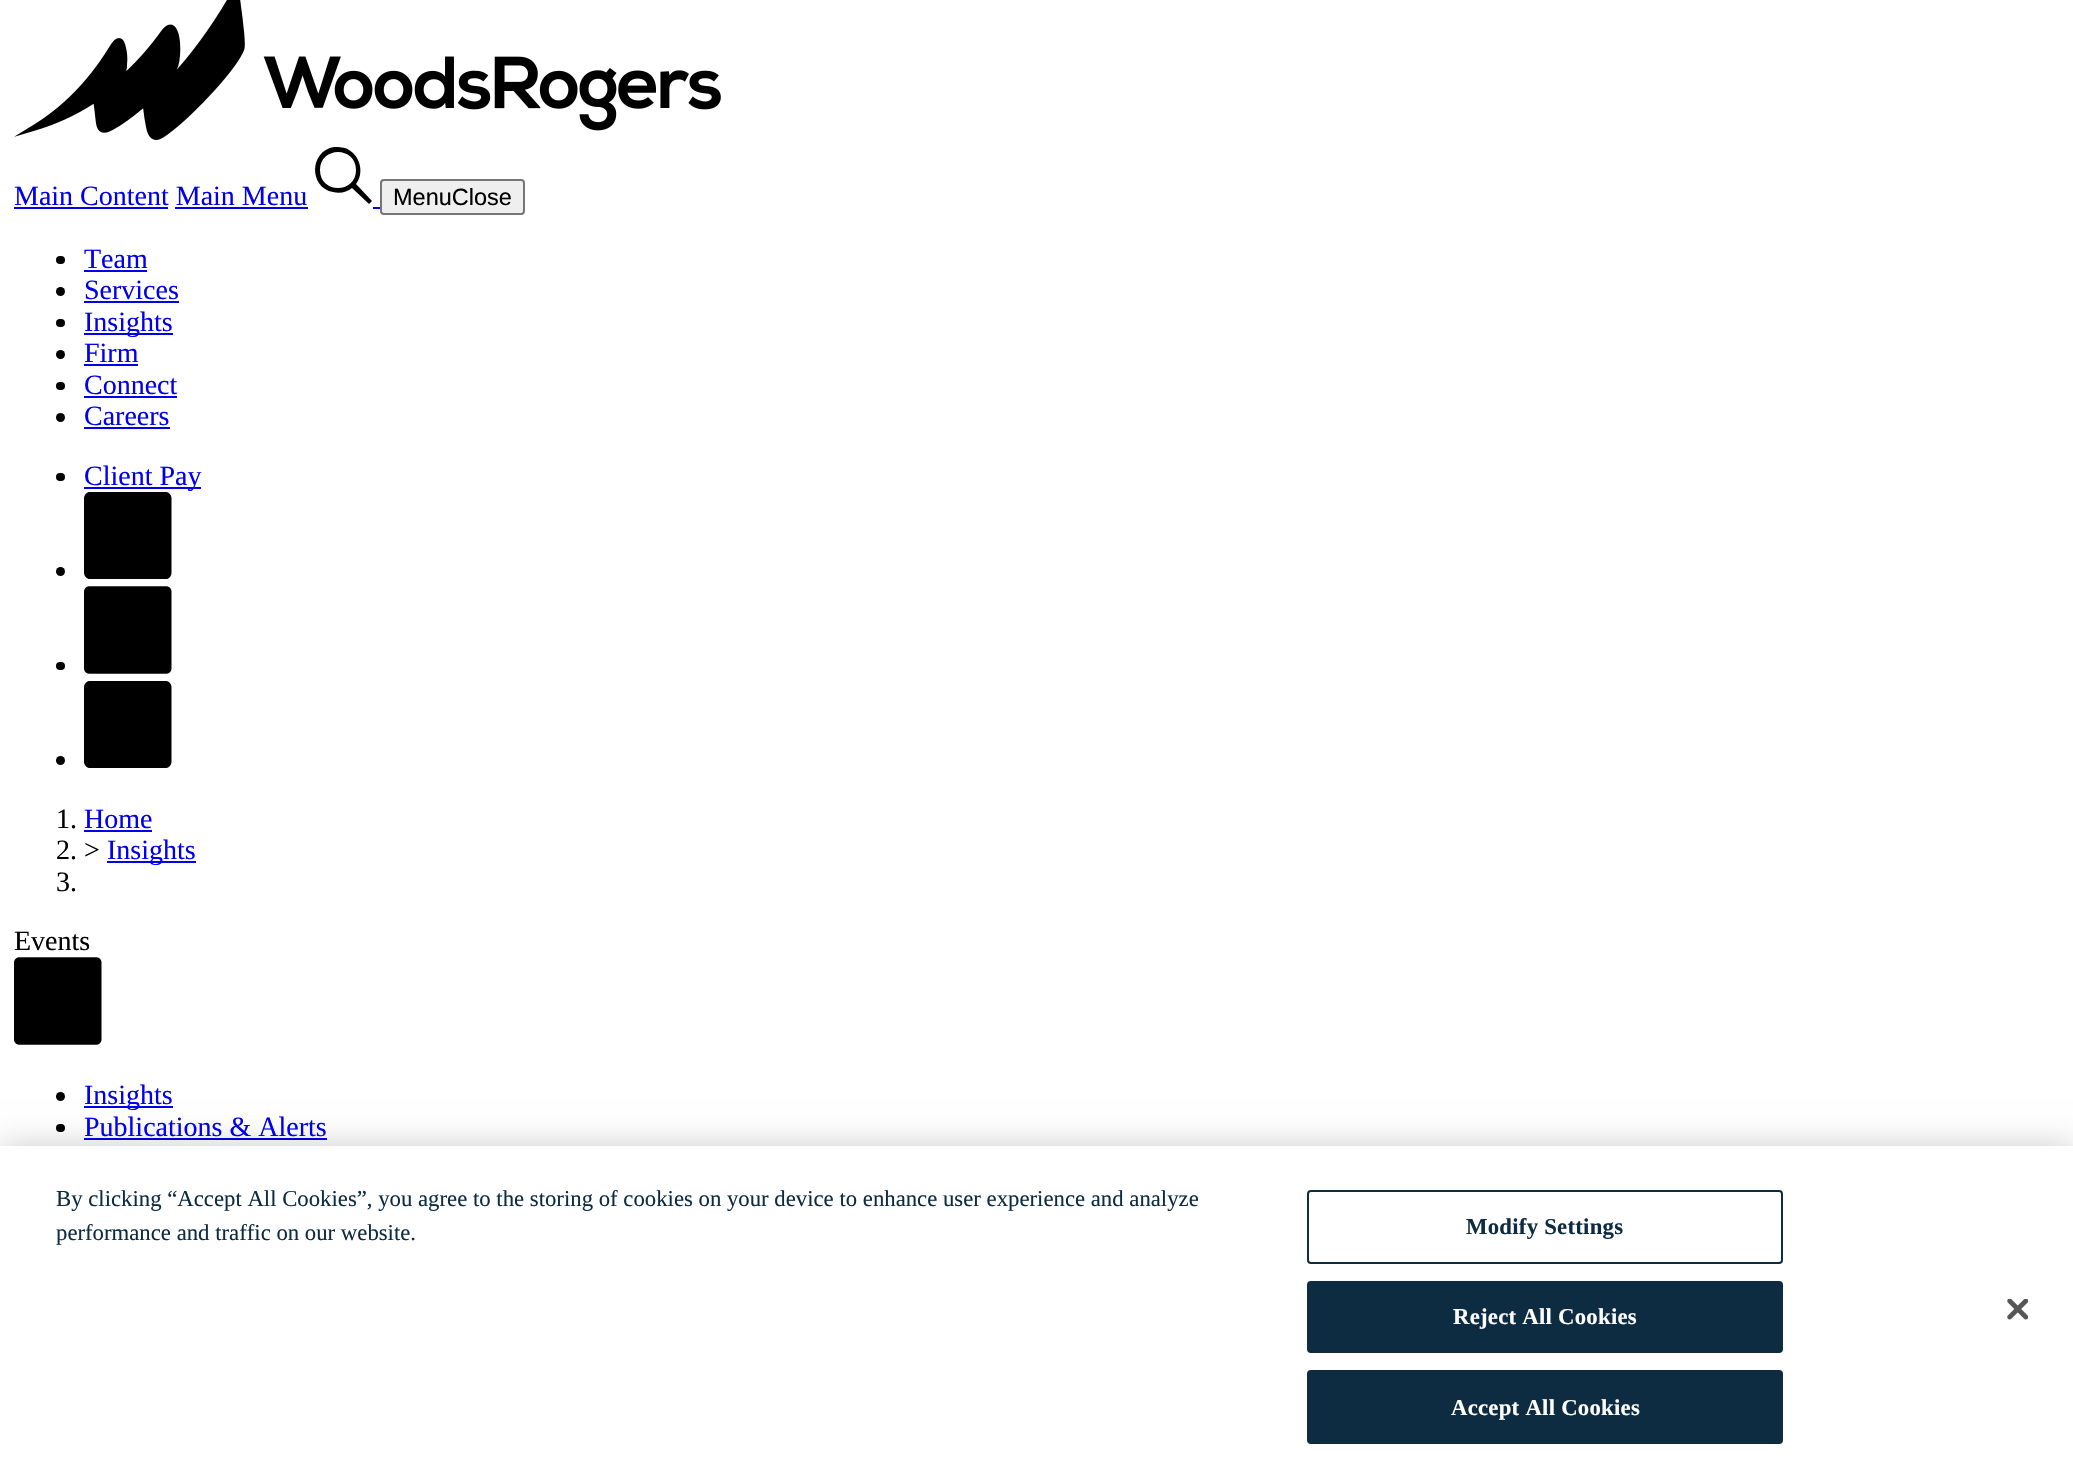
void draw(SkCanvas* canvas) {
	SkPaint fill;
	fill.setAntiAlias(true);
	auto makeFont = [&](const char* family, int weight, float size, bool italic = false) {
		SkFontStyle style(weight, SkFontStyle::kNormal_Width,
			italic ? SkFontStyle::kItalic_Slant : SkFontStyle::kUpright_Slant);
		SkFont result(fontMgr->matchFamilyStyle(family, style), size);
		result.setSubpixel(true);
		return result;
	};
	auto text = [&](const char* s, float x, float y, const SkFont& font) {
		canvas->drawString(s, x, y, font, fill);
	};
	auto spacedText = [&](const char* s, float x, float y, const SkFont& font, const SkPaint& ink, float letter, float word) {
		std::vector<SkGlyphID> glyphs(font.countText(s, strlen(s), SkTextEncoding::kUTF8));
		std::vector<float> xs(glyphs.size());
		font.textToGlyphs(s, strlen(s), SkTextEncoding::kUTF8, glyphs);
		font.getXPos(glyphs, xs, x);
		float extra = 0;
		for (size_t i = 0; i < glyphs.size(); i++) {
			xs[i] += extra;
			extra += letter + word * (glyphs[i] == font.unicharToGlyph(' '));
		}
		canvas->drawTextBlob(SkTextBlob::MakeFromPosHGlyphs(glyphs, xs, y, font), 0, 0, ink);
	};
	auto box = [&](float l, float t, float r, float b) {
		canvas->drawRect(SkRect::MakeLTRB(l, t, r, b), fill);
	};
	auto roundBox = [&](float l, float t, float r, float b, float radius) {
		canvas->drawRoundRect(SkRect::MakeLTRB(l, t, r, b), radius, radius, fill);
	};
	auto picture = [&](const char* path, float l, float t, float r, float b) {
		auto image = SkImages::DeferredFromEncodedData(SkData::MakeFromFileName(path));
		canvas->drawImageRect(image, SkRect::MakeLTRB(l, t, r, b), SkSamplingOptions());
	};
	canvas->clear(0xFFFFFFFF);
	picture("image0.png", 14, 0, 721, 140);
	fill.setColor(0xFF0000EE);
	box(14, 207, 168, 209);
	fill.setColor(0xFF000000);
	canvas->drawPath(SkPathBuilder().moveTo(356, 184).cubicTo(364, 174, 361, 157, 349, 150).cubicTo(345, 147, 339, 147, 334, 147).cubicTo(309, 151, 309, 188, 333, 192).cubicTo(340, 194, 347, 192, 352, 188).lineTo(369, 204).lineTo(372, 201).close().moveTo(356, 170).cubicTo(356, 194, 320, 194, 320, 170).cubicTo(320, 146, 356, 146, 356, 170).close().detach(), fill);
	fill.setColor(0xFFEFEFEF);
	canvas->drawRoundRect(SkRect::MakeLTRB(381, 180, 524, 214), 3, 3, fill);
	fill.setStyle(SkPaint::kStroke_Style);
	fill.setStrokeWidth(2);
	fill.setColor(0xFF767676);
	canvas->drawRoundRect(SkRect::MakeLTRB(381, 180, 524, 214), 3, 3, fill);
	fill.setStyle(SkPaint::kFill_Style);
	fill.setColor(0xFF0000EE);
	box(175, 207, 308, 209);
	box(373, 207, 380, 209);
	fill.setColor(0xFF000000);
	roundBox(56, 256, 65, 264, 4);
	fill.setColor(0xFF0000EE);
	box(84, 270, 147, 272);
	fill.setColor(0xFF000000);
	canvas->drawCircle(60.5f, 291.5f, 4.5f, fill);
	fill.setColor(0xFF0000EE);
	box(84, 301, 179, 303);
	fill.setColor(0xFF000000);
	roundBox(56, 319, 65, 327, 4);
	fill.setColor(0xFF0000EE);
	box(84, 333, 173, 335);
	fill.setColor(0xFF000000);
	canvas->drawCircle(60.5f, 354.5f, 4.5f, fill);
	fill.setColor(0xFF0000EE);
	box(84, 364, 138, 366);
	fill.setColor(0xFF000000);
	roundBox(56, 382, 65, 390, 4);
	fill.setColor(0xFF0000EE);
	box(84, 396, 177, 398);
	fill.setColor(0xFF000000);
	canvas->drawCircle(60.5f, 417.5f, 4.5f, fill);
	fill.setColor(0xFF0000EE);
	box(84, 427, 170, 429);
	fill.setColor(0xFF000000);
	roundBox(56, 473, 65, 481, 4);
	fill.setColor(0xFF0000EE);
	box(84, 487, 201, 489);
	fill.setColor(0xFF000000);
	canvas->drawCircle(60.5f, 571.5f, 4.5f, fill);
	picture("image1.png", 84, 492, 172, 579);
	roundBox(56, 662, 65, 670, 4);
	picture("image2.png", 84, 586, 172, 674);
	canvas->drawCircle(60.5f, 760.5f, 4.5f, fill);
	picture("image3.png", 84, 681, 172, 768);
	fill.setColor(0xFF0000EE);
	box(84, 830, 152, 832);
	box(107, 861, 196, 863);
	picture("image2.png", 14, 957, 102, 1045);
	fill.setColor(0xFF000000);
	canvas->drawCircle(60.5f, 1096.5f, 4.5f, fill);
	fill.setColor(0xFF0000EE);
	box(84, 1106, 173, 1108);
	fill.setColor(0xFF000000);
	roundBox(56, 1124, 65, 1132, 4);
	fill.setColor(0xFF0000EE);
	box(84, 1138, 327, 1140);
	fill.setColor(0x33000000);
	fill.setMaskFilter(SkMaskFilter::MakeBlur(kNormal_SkBlurStyle, 16));
	canvas->drawRect(SkRect::MakeLTRB(0, 1146, 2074, 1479), fill);
	fill.setMaskFilter(nullptr);
	fill.setColor(0xFFFFFFFF);
	box(0, 1146, 2073, 1478);
	fill.setStyle(SkPaint::kStroke_Style);
	fill.setColor(0xFF0D2B41);
	canvas->drawRoundRect(SkRect::MakeLTRB(1308, 1191, 1782, 1263), 3, 3, fill);
	fill.setStyle(SkPaint::kFill_Style);
	canvas->drawRoundRect(SkRect::MakeLTRB(1308, 1282, 1782, 1352), 3, 3, fill);
	fill.setStyle(SkPaint::kStroke_Style);
	canvas->drawRoundRect(SkRect::MakeLTRB(1308, 1282, 1782, 1352), 3, 3, fill);
	fill.setStyle(SkPaint::kFill_Style);
	canvas->drawRoundRect(SkRect::MakeLTRB(1308, 1371, 1782, 1443), 3, 3, fill);
	fill.setStyle(SkPaint::kStroke_Style);
	canvas->drawRoundRect(SkRect::MakeLTRB(1308, 1371, 1782, 1443), 3, 3, fill);
	picture("image4.png", 2007, 1299, 2028, 1320);
	auto font1 = makeFont("Liberation Serif", 400, 28);
	fill.setStyle(SkPaint::kFill_Style);
	fill.setColor(0xFF0000EE);
	text("Main Content Main Menu", 14, 205, font1);
	auto font2 = makeFont("Liberation Sans", 400, 23.5f);
	fill.setColor(0xFF000000);
	text("MenuClose", 393, 205, font2);
	fill.setColor(0xFF0000EE);
	text("Team", 84, 268, font1);
	text("Services", 84, 299, font1);
	text("Insights", 84, 331, font1);
	text("Firm", 84, 362, font1);
	text("Connect", 84, 394, font1);
	text("Careers", 84, 425, font1);
	text("Client Pay", 84, 485, font1);
	fill.setColor(0xFF000000);
	text("1.", 56, 828, font1);
	fill.setColor(0xFF0000EE);
	text("Home", 84, 828, font1);
	fill.setColor(0xFF000000);
	text("2. >", 56, 859, font1);
	fill.setColor(0xFF0000EE);
	text("Insights", 107, 859, font1);
	fill.setColor(0xFF000000);
	text("3.", 56, 891, font1);
	text("Events", 14, 950, font1);
	fill.setColor(0xFF0000EE);
	text("Insights", 84, 1104, font1);
	text("Publications & Alerts", 84, 1136, font1);
	auto font3 = makeFont("Liberation Serif", 400, 22.75f);
	fill.setColor(0xFF0D2B41);
	text("By clicking “Accept All Cookies”, you agree to the storing of cookies on your device to enhance user experience and analyze", 56, 1206, font3);
	text("performance and traffic on our website.", 56, 1240, font3);
	auto font4 = makeFont("Liberation Serif", 700, 22.75f);
	spacedText("Modify Settings", 1466, 1234, font4, fill, 0.25f, 0);
	fill.setColor(0xFFFFFFFF);
	spacedText("Reject All Cookies", 1453, 1324, font4, fill, 0.25f, 0);
	spacedText("Accept All Cookies", 1451, 1415, font4, fill, 0.25f, 0);
}
